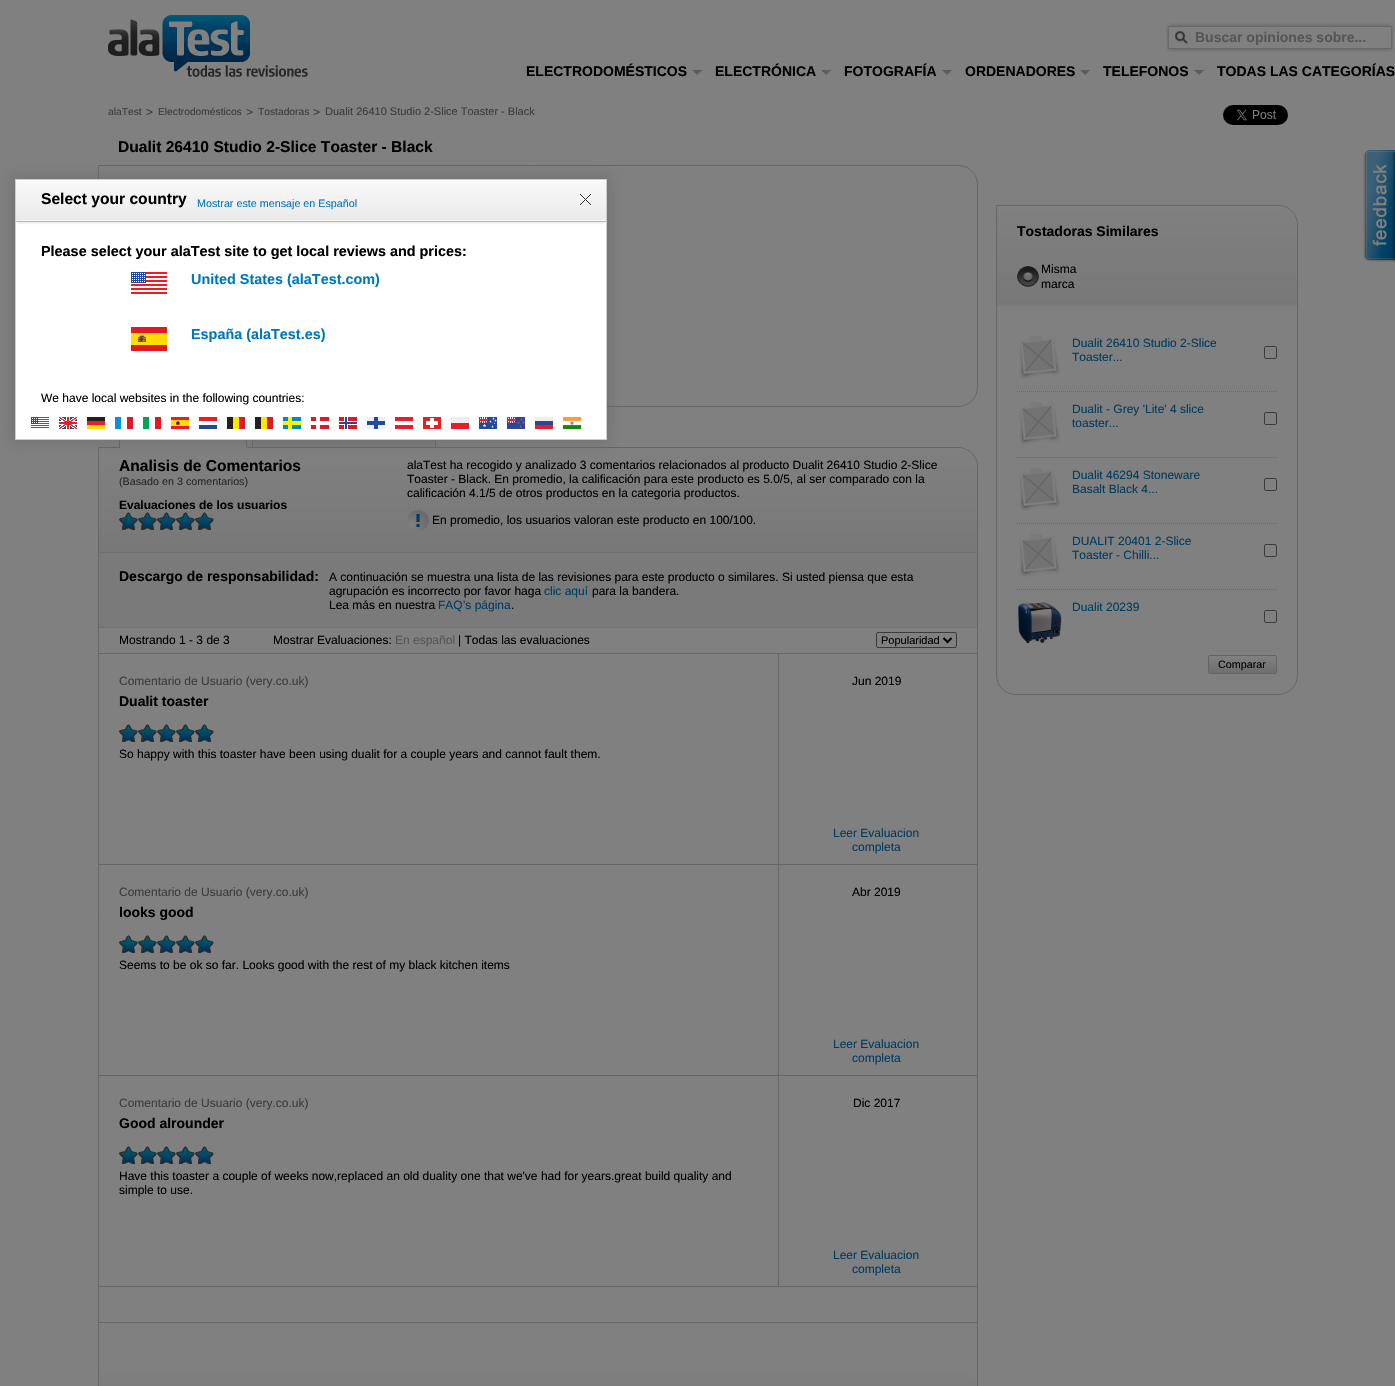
void draw(SkCanvas* canvas) {
	SkPaint fill;
	fill.setAntiAlias(true);
	auto makeFont = [&](const char* family, int weight, float size, bool italic = false) {
		SkFontStyle style(weight, SkFontStyle::kNormal_Width,
			italic ? SkFontStyle::kItalic_Slant : SkFontStyle::kUpright_Slant);
		SkFont result(fontMgr->matchFamilyStyle(family, style), size);
		result.setSubpixel(true);
		return result;
	};
	auto text = [&](const char* s, float x, float y, const SkFont& font) {
		canvas->drawString(s, x, y, font, fill);
	};
	auto box = [&](float l, float t, float r, float b) {
		canvas->drawRect(SkRect::MakeLTRB(l, t, r, b), fill);
	};
	auto picture = [&](const char* path, float l, float t, float r, float b) {
		auto image = SkImages::DeferredFromEncodedData(SkData::MakeFromFileName(path));
		canvas->drawImageRect(image, SkRect::MakeLTRB(l, t, r, b), SkSamplingOptions());
	};
	canvas->clear(0xFF808080);
	picture("image0.png", 1166, 23, 1394, 52);
	picture("image1.png", 692, 70, 703, 76);
	picture("image1.png", 821, 70, 832, 76);
	picture("image1.png", 942, 70, 953, 76);
	picture("image1.png", 1080, 70, 1091, 76);
	picture("image1.png", 1194, 70, 1205, 76);
	picture("image2.png", 108, 15, 308, 77);
	picture("image3.png", 1223, 105, 1288, 125);
	fill.setStyle(SkPaint::kStroke_Style);
	fill.setStrokeWidth(1);
	fill.setColor(0xFF666666);
	canvas->drawPath(SkPathBuilder().moveTo(98.5f, 165.5f).lineTo(958, 165.5f).cubicTo(969, 165.5f, 977.5f, 174, 977.5f, 185).lineTo(977.5f, 387).cubicTo(977.5f, 398, 969, 406.5f, 958, 406.5f).lineTo(118, 406.5f).cubicTo(107, 406.5f, 98.5f, 398, 98.5f, 387).close().detach(), fill);
	canvas->drawPath(SkPathBuilder().moveTo(98.5f, 447.5f).lineTo(958, 447.5f).cubicTo(969, 447.5f, 977.5f, 456, 977.5f, 467).lineTo(977.5f, 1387).cubicTo(977.5f, 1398, 969, 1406.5f, 958, 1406.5f).lineTo(118, 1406.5f).cubicTo(107, 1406.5f, 98.5f, 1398, 98.5f, 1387).close().detach(), fill);
	fill.setStyle(SkPaint::kFill_Style);
	box(246, 440, 247, 448);
	fill.setColor(0xFF808080);
	box(119, 447, 247, 448);
	fill.setColor(0xFF666666);
	box(119, 440, 120, 448);
	fill.setStyle(SkPaint::kStroke_Style);
	canvas->drawRect(SkRect::MakeLTRB(252.5f, 418.5f, 435.5f, 447.5f), fill);
	picture("image4.png", 254, 440, 434, 447);
	fill.setStyle(SkPaint::kFill_Style);
	{
		const SkColor colors[] = {0xFF808080, 0xFF787878};
		const float stops[] = {0, 1};
		const SkPoint ends[] = {{538, 448}, {538, 552}};
		fill.setShader(SkGradientShader::MakeLinear(ends, colors, stops, 2, SkTileMode::kClamp));
		fill.setAlpha(255);
	}
	canvas->drawPath(SkPathBuilder().moveTo(99, 448).lineTo(957, 448).cubicTo(968, 448, 977, 457, 977, 468).lineTo(977, 552).lineTo(99, 552).close().detach(), fill);
	picture("image5.png", 407, 510, 429, 531);
	picture("image6.png", 119, 512, 214, 530);
	picture("image7.png", 119, 512, 214, 530);
	fill.setShader(nullptr);
	fill.setColor(0xFF7A7A7A);
	box(99, 552, 977, 628);
	fill.setStyle(SkPaint::kStroke_Style);
	fill.setColor(0xFF666666);
	fill.setPathEffect(SkDashPathEffect::Make({{1, 1}}, 0));
	canvas->drawPath(SkPathBuilder().moveTo(99, 552.5f).lineTo(977, 552.5f).detach(), fill);
	fill.setPathEffect(nullptr);
	fill.setPathEffect(SkDashPathEffect::Make({{1, 1}}, 0));
	canvas->drawPath(SkPathBuilder().moveTo(99, 627.5f).lineTo(977, 627.5f).detach(), fill);
	fill.setPathEffect(nullptr);
	fill.setColor(0xFF3B3B3B);
	canvas->drawRoundRect(SkRect::MakeLTRB(876.5f, 632.5f, 956.5f, 647.5f), 1.5f, 1.5f, fill);
	fill.setStrokeWidth(2);
	fill.setColor(0xFF000000);
	canvas->drawPath(SkPathBuilder().moveTo(943.5f, 638).lineTo(947.5f, 642).lineTo(951.5f, 638).detach(), fill);
	fill.setStyle(SkPaint::kFill_Style);
	fill.setColor(0xFF666666);
	box(99, 653, 977, 654);
	box(778, 654, 779, 864);
	picture("image8.png", 119, 724, 214, 742);
	picture("image9.png", 119, 724, 214, 742);
	box(99, 864, 977, 865);
	box(778, 865, 779, 1075);
	picture("image8.png", 119, 935, 214, 953);
	picture("image9.png", 119, 935, 214, 953);
	box(99, 1075, 977, 1076);
	box(778, 1076, 779, 1286);
	picture("image8.png", 119, 1146, 214, 1164);
	picture("image9.png", 119, 1146, 214, 1164);
	box(99, 1286, 977, 1287);
	box(99, 1322, 977, 1323);
	{
		const SkColor colors[] = {0xFF808080, 0xFF787878};
		const float stops[] = {0, 1};
		const SkPoint ends[] = {{538, 1368}, {538, 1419}};
		fill.setShader(SkGradientShader::MakeLinear(ends, colors, stops, 2, SkTileMode::kClamp));
		fill.setAlpha(255);
	}
	canvas->drawPath(SkPathBuilder().moveTo(99, 1368).lineTo(957, 1368).cubicTo(968, 1368, 977, 1377, 977, 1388).lineTo(977, 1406).lineTo(99, 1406).close().detach(), fill);
	fill.setStyle(SkPaint::kStroke_Style);
	fill.setStrokeWidth(1);
	fill.setShader(nullptr);
	fill.setColor(0xFF666666);
	canvas->drawPath(SkPathBuilder().moveTo(996.5f, 205.5f).lineTo(1278, 205.5f).cubicTo(1289, 205.5f, 1297.5f, 214, 1297.5f, 225).lineTo(1297.5f, 675).cubicTo(1297.5f, 686, 1289, 694.5f, 1278, 694.5f).lineTo(1016, 694.5f).cubicTo(1005, 694.5f, 996.5f, 686, 996.5f, 675).close().detach(), fill);
	fill.setStyle(SkPaint::kFill_Style);
	{
		const SkColor colors[] = {0xFF808080, 0xFF787878};
		const float stops[] = {0, 1};
		const SkPoint ends[] = {{1147, 206}, {1147, 306}};
		fill.setShader(SkGradientShader::MakeLinear(ends, colors, stops, 2, SkTileMode::kClamp));
		fill.setAlpha(255);
	}
	canvas->drawPath(SkPathBuilder().moveTo(997, 206).lineTo(1277, 206).cubicTo(1288, 206, 1297, 215, 1297, 226).lineTo(1297, 306).lineTo(997, 306).close().detach(), fill);
	picture("image10.png", 1017, 266, 1039, 287);
	fill.setStyle(SkPaint::kStroke_Style);
	fill.setShader(nullptr);
	fill.setColor(0xFF666666);
	fill.setPathEffect(SkDashPathEffect::Make({{1, 1}}, 0));
	canvas->drawPath(SkPathBuilder().moveTo(1017, 391.5f).lineTo(1277, 391.5f).detach(), fill);
	fill.setPathEffect(nullptr);
	picture("image11.png", 1019, 336, 1060, 379);
	fill.setColor(0xFF3B3B3B);
	canvas->drawRoundRect(SkRect::MakeLTRB(1264.5f, 346.5f, 1276.5f, 358.5f), 1.5f, 1.5f, fill);
	fill.setColor(0xFF666666);
	fill.setPathEffect(SkDashPathEffect::Make({{1, 1}}, 0));
	canvas->drawPath(SkPathBuilder().moveTo(1017, 457.5f).lineTo(1277, 457.5f).detach(), fill);
	fill.setPathEffect(nullptr);
	picture("image11.png", 1019, 402, 1060, 445);
	fill.setColor(0xFF3B3B3B);
	canvas->drawRoundRect(SkRect::MakeLTRB(1264.5f, 412.5f, 1276.5f, 424.5f), 1.5f, 1.5f, fill);
	fill.setColor(0xFF666666);
	fill.setPathEffect(SkDashPathEffect::Make({{1, 1}}, 0));
	canvas->drawPath(SkPathBuilder().moveTo(1017, 523.5f).lineTo(1277, 523.5f).detach(), fill);
	fill.setPathEffect(nullptr);
	picture("image11.png", 1019, 468, 1060, 511);
	fill.setColor(0xFF3B3B3B);
	canvas->drawRoundRect(SkRect::MakeLTRB(1264.5f, 478.5f, 1276.5f, 490.5f), 1.5f, 1.5f, fill);
	fill.setColor(0xFF666666);
	fill.setPathEffect(SkDashPathEffect::Make({{1, 1}}, 0));
	canvas->drawPath(SkPathBuilder().moveTo(1017, 589.5f).lineTo(1277, 589.5f).detach(), fill);
	fill.setPathEffect(nullptr);
	picture("image11.png", 1019, 534, 1060, 577);
	fill.setColor(0xFF3B3B3B);
	canvas->drawRoundRect(SkRect::MakeLTRB(1264.5f, 544.5f, 1276.5f, 556.5f), 1.5f, 1.5f, fill);
	picture("image12.png", 1017, 600, 1062, 645);
	canvas->drawRoundRect(SkRect::MakeLTRB(1264.5f, 610.5f, 1276.5f, 622.5f), 1.5f, 1.5f, fill);
	picture("image13.png", 1208, 655, 1276, 674);
	picture("image14.png", 1276, 655, 1277, 674);
	fill.setStyle(SkPaint::kFill_Style);
	fill.setColor(0x66646464);
	fill.setMaskFilter(SkMaskFilter::MakeBlur(kNormal_SkBlurStyle, 6.5f));
	canvas->drawRect(SkRect::MakeLTRB(10, 174, 612, 445), fill);
	fill.setMaskFilter(nullptr);
	fill.setStyle(SkPaint::kStroke_Style);
	fill.setColor(0xFFCCCCCC);
	canvas->drawRect(SkRect::MakeLTRB(15.5f, 179.5f, 606.5f, 439.5f), fill);
	fill.setStyle(SkPaint::kFill_Style);
	fill.setColor(0xFFFFFFFF);
	box(16, 222, 606, 439);
	fill.setColor(0xFFE2E2E2);
	fill.setMaskFilter(SkMaskFilter::MakeBlur(kNormal_SkBlurStyle, 1));
	canvas->drawRect(SkRect::MakeLTRB(18, 186, 604, 223), fill);
	fill.setMaskFilter(nullptr);
	fill.setColor(0xFFBABABA);
	box(16, 221, 606, 222);
	{
		const SkColor colors[] = {0xFFF9F9F9, 0xFFEAEAEA};
		const float stops[] = {0, 1};
		const SkPoint ends[] = {{311, 181}, {311, 220}};
		fill.setShader(SkGradientShader::MakeLinear(ends, colors, stops, 2, SkTileMode::kClamp));
		fill.setAlpha(255);
	}
	box(16, 181, 606, 220);
	fill.setShader(nullptr);
	fill.setColor(0xFFFFFFFF);
	box(16, 180, 606, 181);
	fill.setColor(0xFFF5F5F5);
	box(16, 220, 606, 221);
	picture("image15.png", 580, 194, 591, 205);
	picture("image16.png", 131, 272, 167, 294);
	picture("image17.png", 131, 327, 167, 351);
	picture("image18.png", 31, 417, 49, 428);
	picture("image19.png", 59, 417, 77, 429);
	picture("image20.png", 87, 417, 105, 429);
	picture("image21.png", 115, 417, 133, 429);
	picture("image22.png", 143, 417, 161, 429);
	picture("image23.png", 171, 417, 189, 429);
	picture("image24.png", 199, 417, 217, 429);
	picture("image25.png", 227, 417, 245, 429);
	picture("image25.png", 255, 417, 273, 429);
	picture("image26.png", 283, 417, 301, 429);
	picture("image27.png", 311, 417, 329, 429);
	picture("image28.png", 339, 417, 357, 429);
	picture("image29.png", 367, 417, 385, 429);
	picture("image30.png", 395, 417, 413, 429);
	picture("image31.png", 423, 417, 441, 429);
	picture("image32.png", 451, 417, 469, 429);
	picture("image33.png", 479, 417, 497, 429);
	picture("image34.png", 507, 417, 525, 429);
	picture("image35.png", 535, 417, 553, 429);
	picture("image36.png", 563, 417, 581, 429);
	picture("image37.png", 1363, 150, 1395, 263);
	auto font1 = makeFont("Liberation Sans", 700, 14);
	fill.setColor(0xFF555555);
	text("Buscar opiniones sobre...", 1195, 42, font1);
	fill.setColor(0xFF000000);
	text("ELECTRODOMÉSTICOS", 526, 76, font1);
	text("ELECTRÓNICA", 715, 76, font1);
	text("FOTOGRAFÍA", 844, 76, font1);
	text("ORDENADORES", 965, 76, font1);
	text("TELEFONOS", 1103, 76, font1);
	text("TODAS LAS CATEGORÍAS", 1217, 76, font1);
	auto font2 = makeFont("Liberation Sans", 400, 10.25f);
	fill.setColor(0xFF3C3C3C);
	text("alaTest", 108, 115, font2);
	auto font3 = makeFont("Liberation Sans", 400, 12);
	text(">", 146, 116, font3);
	text("Electrodomésticos", 158, 115, font2);
	text(">", 246, 116, font3);
	text("Tostadoras", 258, 115, font2);
	text(">", 313, 116, font3);
	auto font4 = makeFont("Liberation Sans", 400, 11);
	text("Dualit 26410 Studio 2-Slice Toaster - Black", 325, 115, font4);
	auto font5 = makeFont("Liberation Sans", 700, 15.6f);
	fill.setColor(0xFF000000);
	text("Dualit 26410 Studio 2-Slice Toaster - Black", 118, 152, font5);
	text("Analisis de Comentarios", 119, 471, font5);
	text("alaTest ha recogido y analizado 3 comentarios relacionados al producto Dualit 26410 Studio 2-Slice", 407, 469, font3);
	text("Toaster - Black. En promedio, la calificación para este producto es 5.0/5, al ser comparado con la", 407, 483, font3);
	text("calificación 4.1/5 de otros productos en la categoria productos.", 407, 497, font3);
	text("En promedio, los usuarios valoran este producto en 100/100.", 432, 524, font3);
	auto font6 = makeFont("Liberation Sans", 400, 10.75f);
	fill.setColor(0xFF282828);
	text("(Basado en 3 comentarios)", 119, 485, font6);
	auto font7 = makeFont("Liberation Sans", 700, 12);
	fill.setColor(0xFF000000);
	text("Evaluaciones de los usuarios", 119, 509, font7);
	text("Descargo de responsabilidad:", 119, 581, font1);
	text("A continuación se muestra una lista de las revisiones para este producto o similares. Si usted piensa que esta", 329, 581, font3);
	text("agrupación es incorrecto por favor haga", 329, 595, font3);
	fill.setColor(0xFF003C5F);
	text("clic aquí", 544, 595, font3);
	fill.setColor(0xFF000000);
	text("para la bandera.", 592, 595, font3);
	text("Lea más en nuestra", 329, 609, font3);
	fill.setColor(0xFF003C5F);
	text("FAQ’s página", 438, 609, font3);
	fill.setColor(0xFF000000);
	text(".", 511, 609, font3);
	text("Mostrando 1 - 3 de 3", 119, 644, font3);
	text("Mostrar Evaluaciones:", 273, 644, font3);
	fill.setColor(0xFF555555);
	text("En español", 395, 644, font3);
	fill.setColor(0xFF000000);
	text("| Todas las evaluaciones", 458, 644, font3);
	text("Popularidad", 881, 644, font4);
	fill.setColor(0xFF3C3C3C);
	text("Comentario de Usuario (very.co.uk)", 119, 685, font3);
	fill.setColor(0xFF000000);
	text("Dualit toaster", 119, 706, font1);
	text("So happy with this toaster have been using dualit for a couple years and cannot fault them.", 119, 758, font3);
	text("Jun 2019", 852, 685, font3);
	fill.setColor(0xFF003C5F);
	text("Leer Evaluacion", 833, 837, font3);
	text("completa", 852, 851, font3);
	fill.setColor(0xFF3C3C3C);
	text("Comentario de Usuario (very.co.uk)", 119, 896, font3);
	fill.setColor(0xFF000000);
	text("looks good", 119, 917, font1);
	text("Seems to be ok so far. Looks good with the rest of my black kitchen items", 119, 969, font3);
	text("Abr 2019", 852, 896, font3);
	fill.setColor(0xFF003C5F);
	text("Leer Evaluacion", 833, 1048, font3);
	text("completa", 852, 1062, font3);
	fill.setColor(0xFF3C3C3C);
	text("Comentario de Usuario (very.co.uk)", 119, 1107, font3);
	fill.setColor(0xFF000000);
	text("Good alrounder", 119, 1128, font1);
	text("Have this toaster a couple of weeks now,replaced an old duality one that we've had for years.great build quality and", 119, 1180, font3);
	text("simple to use.", 119, 1194, font3);
	text("Dic 2017", 853, 1107, font3);
	fill.setColor(0xFF003C5F);
	text("Leer Evaluacion", 833, 1259, font3);
	text("completa", 852, 1273, font3);
	fill.setColor(0xFF000000);
	text("Tostadoras Similares", 1017, 236, font1);
	text("Misma", 1041, 273, font3);
	text("marca", 1041, 288, font3);
	fill.setColor(0xFF003C5F);
	text("Dualit 26410 Studio 2-Slice", 1072, 347, font3);
	text("Toaster...", 1072, 361, font3);
	text("Dualit - Grey 'Lite' 4 slice", 1072, 413, font3);
	text("toaster...", 1072, 427, font3);
	text("Dualit 46294 Stoneware", 1072, 479, font3);
	text("Basalt Black 4...", 1072, 493, font3);
	text("DUALIT 20401 2-Slice", 1072, 545, font3);
	text("Toaster - Chilli...", 1072, 559, font3);
	text("Dualit 20239", 1072, 611, font3);
	fill.setColor(0xFF000000);
	text("Comparar", 1218, 668, font6);
	text("Select your country", 41, 204, font5);
	fill.setColor(0xFF0078BE);
	text("Mostrar este mensaje en Español", 197, 207, font6);
	auto font8 = makeFont("Liberation Sans", 700, 14.4f);
	fill.setColor(0xFF000000);
	text("Please select your alaTest site to get local reviews and prices:", 41, 256, font8);
	fill.setColor(0xFF0078BE);
	text("United States (alaTest.com)", 191, 284, font8);
	text("España (alaTest.es)", 191, 339, font8);
	fill.setColor(0xFF000000);
	text("We have local websites in the following countries:", 41, 402, font3);
}
